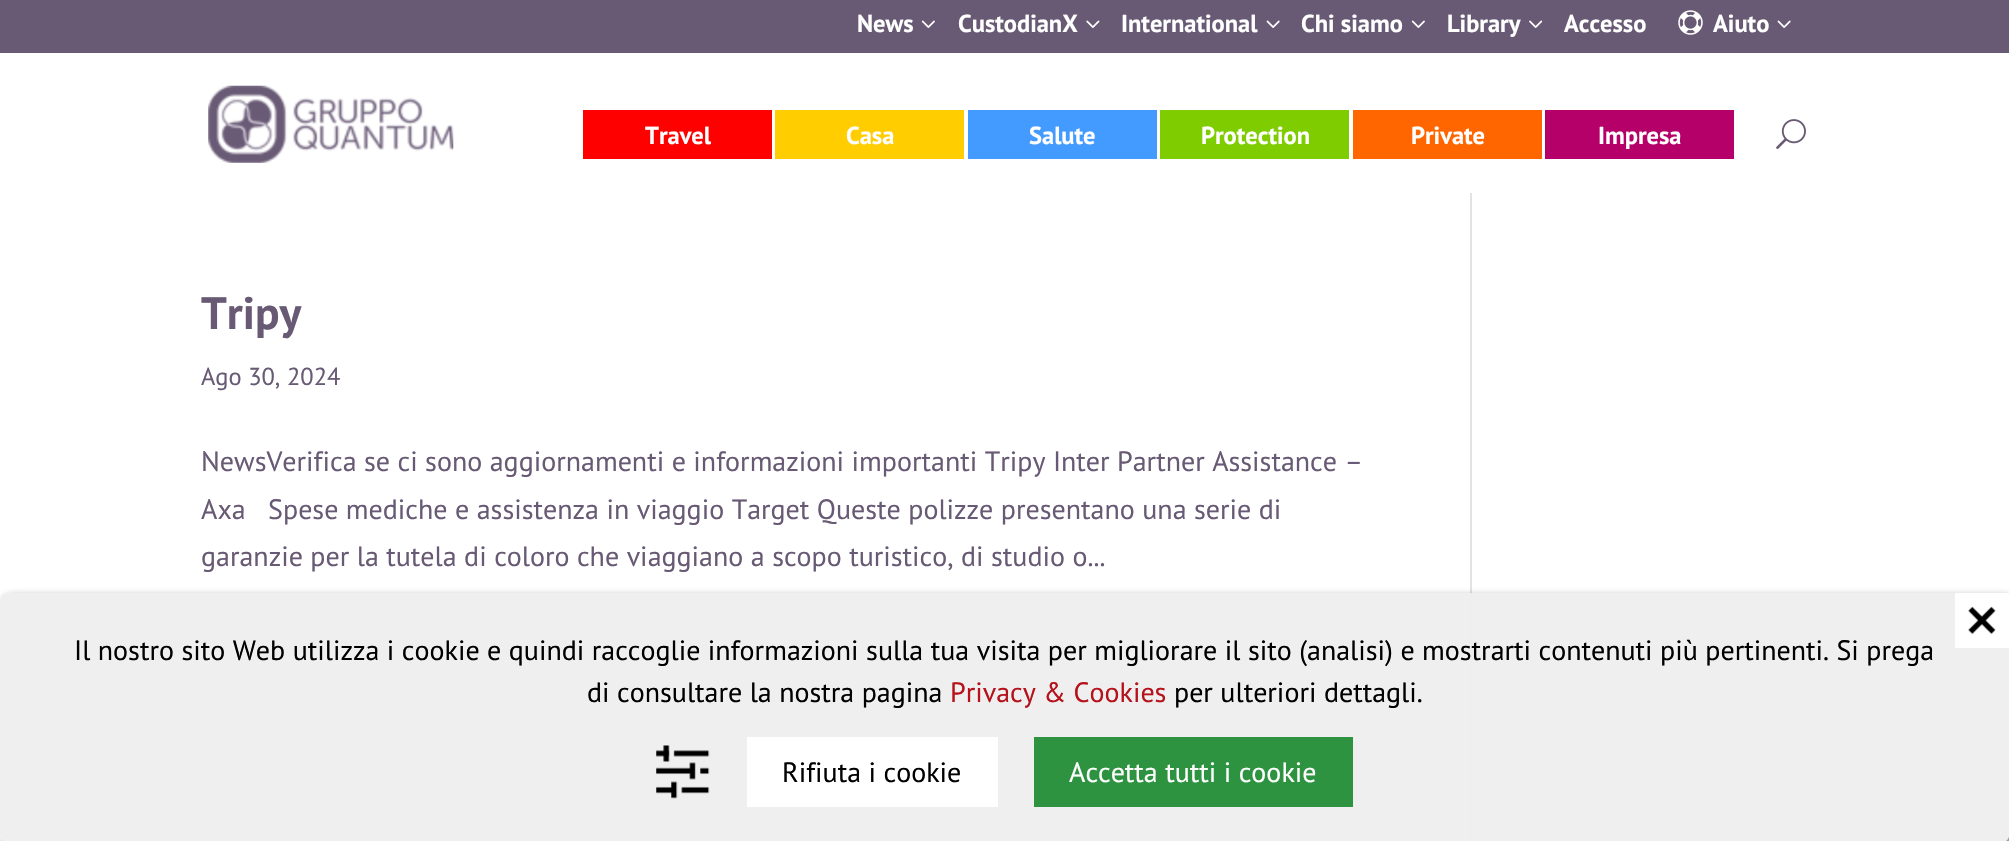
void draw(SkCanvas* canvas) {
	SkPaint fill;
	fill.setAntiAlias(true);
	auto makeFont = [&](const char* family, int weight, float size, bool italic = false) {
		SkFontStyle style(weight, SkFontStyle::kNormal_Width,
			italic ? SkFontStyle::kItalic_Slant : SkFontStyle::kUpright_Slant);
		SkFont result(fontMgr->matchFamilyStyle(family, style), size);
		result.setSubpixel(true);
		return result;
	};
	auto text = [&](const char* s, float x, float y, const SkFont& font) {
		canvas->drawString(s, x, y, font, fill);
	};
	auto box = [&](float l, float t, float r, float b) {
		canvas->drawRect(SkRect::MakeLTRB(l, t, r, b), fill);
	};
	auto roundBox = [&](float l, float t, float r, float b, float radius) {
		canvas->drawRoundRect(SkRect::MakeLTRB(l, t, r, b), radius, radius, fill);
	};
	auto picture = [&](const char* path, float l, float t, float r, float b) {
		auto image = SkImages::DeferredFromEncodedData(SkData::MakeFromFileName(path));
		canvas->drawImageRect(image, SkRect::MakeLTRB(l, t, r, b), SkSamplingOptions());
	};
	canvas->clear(0xFFFFFFFF);
	fill.setColor(0xFF685A74);
	box(0, 0, 2009, 53);
	picture("image0.png", 921, 20, 935, 28);
	picture("image1.png", 1086, 20, 1100, 28);
	picture("image2.png", 1266, 20, 1280, 28);
	picture("image0.png", 1411, 20, 1425, 28);
	picture("image3.png", 1529, 20, 1543, 28);
	picture("image4.png", 1678, 10, 1703, 35);
	picture("image2.png", 1777, 20, 1791, 28);
	fill.setColor(0xFFE2E2E2);
	box(1470, 189, 1472, 841);
	fill.setColor(0xFFFFFFFF);
	box(1470, 189, 1472, 193);
	picture("image5.png", 208, 85, 454, 163);
	fill.setColor(0xFFFF0000);
	box(583, 110, 772, 159);
	fill.setColor(0xFFFFCD00);
	box(775, 110, 964, 159);
	fill.setColor(0xFF439AFF);
	box(968, 110, 1157, 159);
	fill.setColor(0xFF7FCD00);
	box(1160, 110, 1349, 159);
	fill.setColor(0xFFFF6600);
	box(1353, 110, 1542, 159);
	fill.setColor(0xFFB40068);
	box(1545, 110, 1734, 159);
	picture("image6.png", 1776, 119, 1806, 149);
	canvas->save();
	canvas->clipPath(SkPathBuilder(SkPathFillType::kEvenOdd).moveTo(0, 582).lineTo(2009, 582).lineTo(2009, 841).lineTo(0, 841).close().moveTo(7, 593).lineTo(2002, 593).cubicTo(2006, 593, 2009, 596, 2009, 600).lineTo(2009, 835).cubicTo(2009, 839, 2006, 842, 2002, 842).lineTo(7, 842).cubicTo(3, 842, 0, 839, 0, 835).lineTo(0, 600).cubicTo(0, 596, 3, 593, 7, 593).close().detach(), true);
	fill.setColor(0xBF444444);
	fill.setMaskFilter(SkMaskFilter::MakeBlur(kNormal_SkBlurStyle, 4.5f));
	canvas->drawRoundRect(SkRect::MakeLTRB(4, 597, 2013, 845), 7, 7, fill);
	fill.setMaskFilter(nullptr);
	canvas->restore();
	fill.setColor(0xF2EEEEEE);
	roundBox(0, 593, 2009, 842, 7);
	fill.setColor(0xFFFFFFFF);
	box(1955, 593, 2009, 648);
	picture("image7.png", 1968, 606, 1996, 635);
	picture("image8.png", 656, 745, 710, 799);
	box(747, 737, 998, 807);
	fill.setColor(0xFF2D9340);
	box(1034, 737, 1353, 807);
	auto font1 = makeFont("PT Sans", 700, 24.5f);
	fill.setColor(0xFFFFFFFF);
	text("News", 857, 32, font1);
	text("CustodianX", 958, 32, font1);
	text("International", 1121, 32, font1);
	text("Chi siamo", 1301, 32, font1);
	text("Library", 1447, 32, font1);
	text("Accesso", 1564, 32, font1);
	text("Aiuto", 1713, 32, font1);
	text("Travel", 645, 144, font1);
	text("Casa", 846, 144, font1);
	text("Salute", 1029, 144, font1);
	text("Protection", 1201, 144, font1);
	text("Private", 1411, 144, font1);
	text("Impresa", 1598, 144, font1);
	auto font2 = makeFont("PT Sans", 700, 45.5f);
	fill.setColor(0xFF685A74);
	text("Tripy", 201, 329, font2);
	auto font3 = makeFont("PT Sans", 400, 24.5f);
	text("Ago 30, 2024", 201, 385, font3);
	auto font4 = makeFont("PT Sans", 400, 28);
	text("NewsVerifica se ci sono aggiornamenti e informazioni importanti Tripy Inter Partner Assistance –", 201, 471, font4);
	text("Axa   Spese mediche e assistenza in viaggio Target Queste polizze presentano una serie di", 201, 519, font4);
	text("garanzie per la tutela di coloro che viaggiano a scopo turistico, di studio o...", 201, 566, font4);
	fill.setColor(0xFF000000);
	text("Il nostro sito Web utilizza i cookie e quindi raccoglie informazioni sulla tua visita per migliorare il sito (analisi) e mostrarti contenuti più pertinenti. Si prega", 74, 660, font4);
	text("di consultare la nostra pagina", 587, 702, font4);
	fill.setColor(0xFFB5121B);
	text("Privacy & Cookies", 950, 702, font4);
	fill.setColor(0xFF000000);
	text("per ulteriori dettagli.", 1174, 702, font4);
	text("Rifiuta i cookie", 782, 782, font4);
	fill.setColor(0xFFFFFFFF);
	text("Accetta tutti i cookie", 1069, 782, font4);
}
